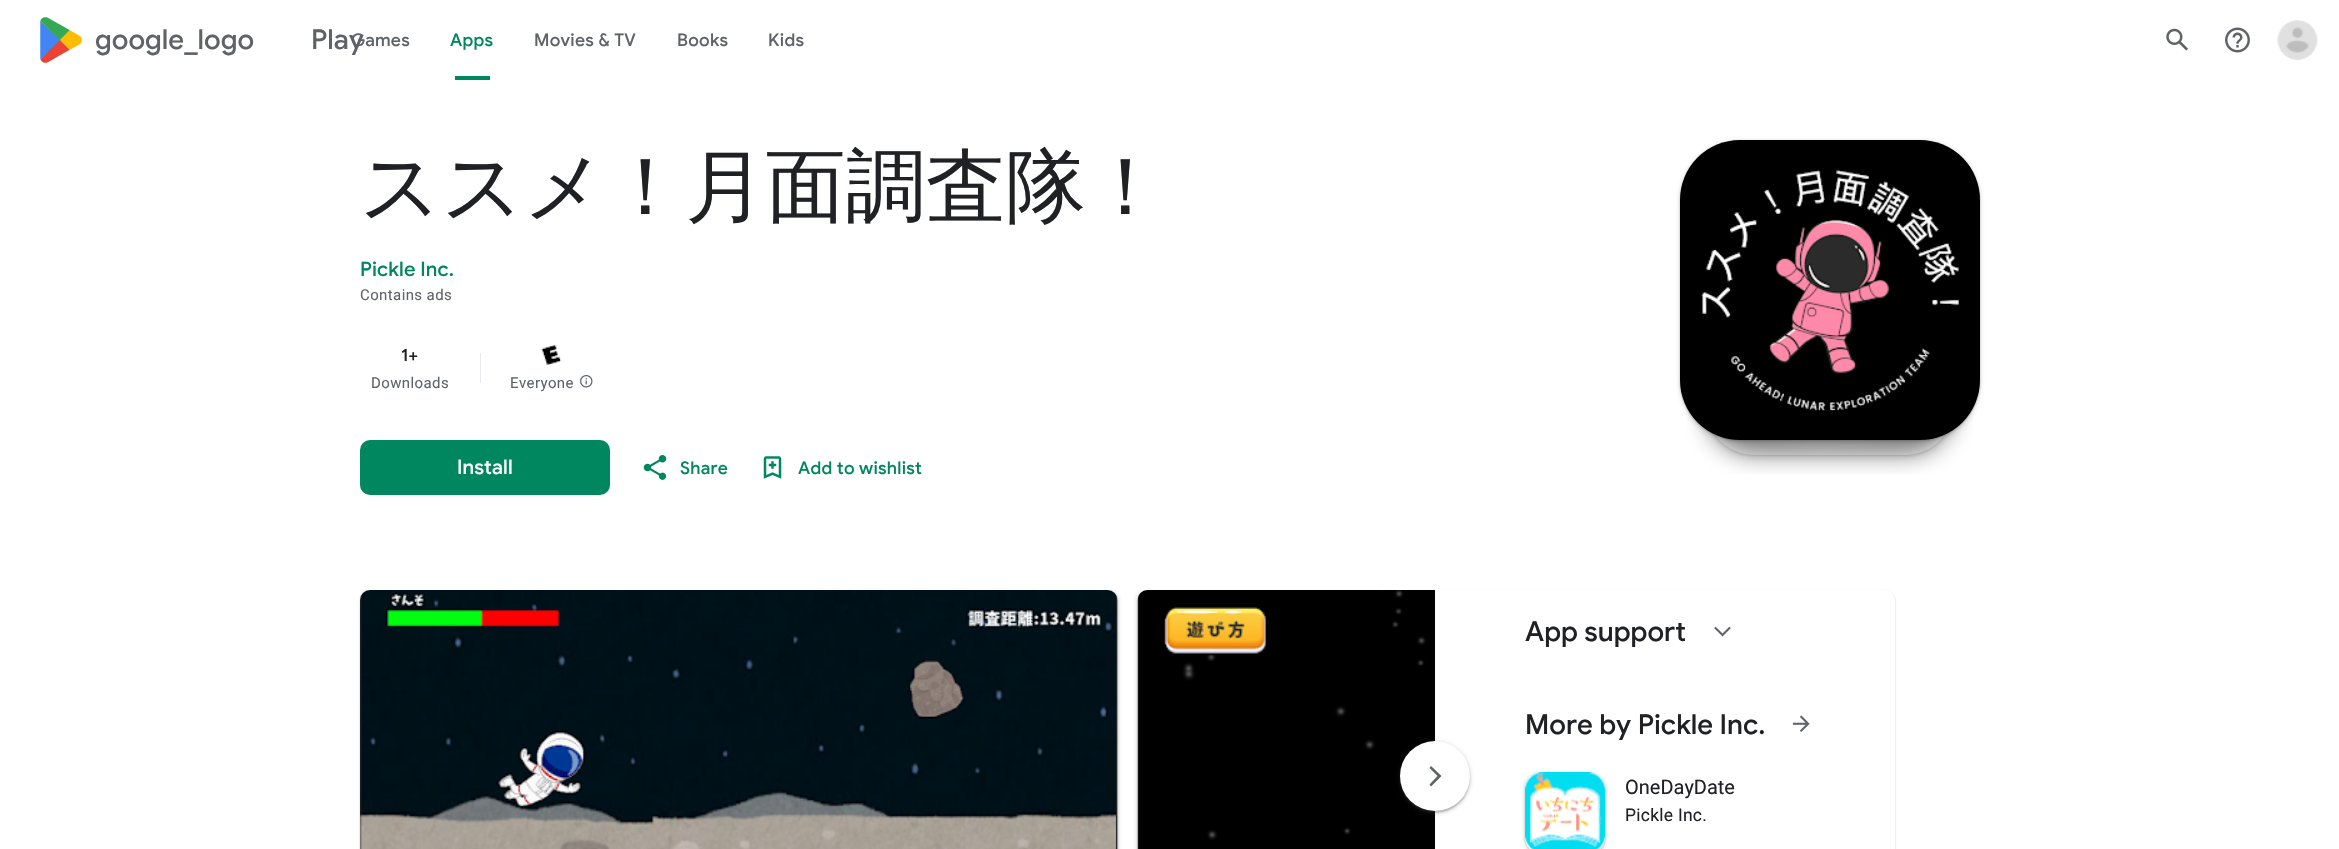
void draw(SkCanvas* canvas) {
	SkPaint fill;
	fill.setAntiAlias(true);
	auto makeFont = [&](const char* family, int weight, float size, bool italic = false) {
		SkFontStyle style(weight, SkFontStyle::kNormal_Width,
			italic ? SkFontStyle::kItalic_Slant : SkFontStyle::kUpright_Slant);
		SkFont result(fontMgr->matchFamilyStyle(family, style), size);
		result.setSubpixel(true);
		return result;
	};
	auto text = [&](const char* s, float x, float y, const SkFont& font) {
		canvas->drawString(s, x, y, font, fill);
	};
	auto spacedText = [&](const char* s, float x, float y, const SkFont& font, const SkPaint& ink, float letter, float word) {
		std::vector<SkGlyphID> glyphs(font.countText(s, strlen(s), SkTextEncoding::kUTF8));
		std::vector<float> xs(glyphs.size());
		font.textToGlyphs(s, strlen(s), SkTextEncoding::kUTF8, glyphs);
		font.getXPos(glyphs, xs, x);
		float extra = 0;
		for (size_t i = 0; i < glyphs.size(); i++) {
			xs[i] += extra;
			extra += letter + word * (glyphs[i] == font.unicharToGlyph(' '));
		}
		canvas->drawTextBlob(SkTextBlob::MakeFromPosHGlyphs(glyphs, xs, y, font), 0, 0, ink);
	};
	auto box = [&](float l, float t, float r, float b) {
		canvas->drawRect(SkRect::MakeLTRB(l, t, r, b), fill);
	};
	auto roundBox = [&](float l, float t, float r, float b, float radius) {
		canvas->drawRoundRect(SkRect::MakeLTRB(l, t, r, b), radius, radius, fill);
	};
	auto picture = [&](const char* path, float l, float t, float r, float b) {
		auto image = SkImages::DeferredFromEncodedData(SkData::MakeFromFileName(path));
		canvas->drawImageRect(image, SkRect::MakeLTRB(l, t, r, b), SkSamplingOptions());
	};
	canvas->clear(0xFFFFFFFF);
	picture("image0.png", 40, 17, 82, 63);
	fill.setColor(0xFF01875F);
	box(455, 76, 490, 80);
	picture("image1.png", 2166, 28, 2188, 51);
	picture("image2.png", 2225, 27, 2250, 53);
	picture("image3.png", 2277, 20, 2318, 60);
	fill.setColor(0xFFE8EAED);
	box(480, 353, 481, 383);
	picture("image4.png", 541, 345, 562, 365);
	picture("image5.png", 580, 375, 593, 388);
	canvas->save();
	canvas->clipPath(SkPathBuilder(SkPathFillType::kEvenOdd).moveTo(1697, 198).lineTo(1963, 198).lineTo(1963, 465).lineTo(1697, 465).close().moveTo(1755, 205).lineTo(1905, 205).cubicTo(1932.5f, 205, 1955, 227.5f, 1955, 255).lineTo(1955, 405).cubicTo(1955, 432.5f, 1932.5f, 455, 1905, 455).lineTo(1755, 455).cubicTo(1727.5f, 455, 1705, 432.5f, 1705, 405).lineTo(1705, 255).cubicTo(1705, 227.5f, 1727.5f, 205, 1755, 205).close().detach(), true);
	fill.setColor(0x269EA0A1);
	fill.setMaskFilter(SkMaskFilter::MakeBlur(kNormal_SkBlurStyle, 2));
	canvas->drawRoundRect(SkRect::MakeLTRB(1704, 205, 1956, 458), 51, 51, fill);
	fill.setMaskFilter(nullptr);
	canvas->restore();
	canvas->save();
	canvas->clipPath(SkPathBuilder(SkPathFillType::kEvenOdd).moveTo(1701, 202).lineTo(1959, 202).lineTo(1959, 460).lineTo(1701, 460).close().moveTo(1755, 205).lineTo(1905, 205).cubicTo(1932.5f, 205, 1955, 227.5f, 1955, 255).lineTo(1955, 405).cubicTo(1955, 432.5f, 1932.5f, 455, 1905, 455).lineTo(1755, 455).cubicTo(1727.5f, 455, 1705, 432.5f, 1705, 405).lineTo(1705, 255).cubicTo(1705, 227.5f, 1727.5f, 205, 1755, 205).close().detach(), true);
	fill.setColor(0x4D9EA0A1);
	fill.setMaskFilter(SkMaskFilter::MakeBlur(kNormal_SkBlurStyle, 1));
	canvas->drawRoundRect(SkRect::MakeLTRB(1705, 206, 1955, 456), 50, 50, fill);
	fill.setMaskFilter(nullptr);
	canvas->restore();
	picture("image7.png", 1687, 408, 1973, 474);
	fill.setColor(0x263C4043);
	fill.setMaskFilter(SkMaskFilter::MakeBlur(kNormal_SkBlurStyle, 2));
	canvas->drawRoundRect(SkRect::MakeLTRB(1679, 140, 1981, 443), 61, 61, fill);
	fill.setMaskFilter(nullptr);
	fill.setColor(0x4D3C4043);
	fill.setMaskFilter(SkMaskFilter::MakeBlur(kNormal_SkBlurStyle, 1));
	canvas->drawRoundRect(SkRect::MakeLTRB(1680, 141, 1980, 441), 60, 60, fill);
	fill.setMaskFilter(nullptr);
	picture("image6.png", 1680, 140, 1980, 440);
	fill.setColor(0xFF01875F);
	roundBox(360, 440, 610, 495, 10);
	picture("image8.png", 643, 455, 667, 480);
	picture("image9.png", 763, 456, 782, 479);
	canvas->save();
	canvas->clipRect(SkRect::MakeLTRB(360, 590, 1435, 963));
	fill.setColor(0x263C4043);
	fill.setMaskFilter(SkMaskFilter::MakeBlur(kNormal_SkBlurStyle, 2));
	canvas->drawRoundRect(SkRect::MakeLTRB(359, 590, 1119, 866), 11, 11, fill);
	fill.setMaskFilter(nullptr);
	canvas->restore();
	fill.setColor(0x4D3C4043);
	fill.setMaskFilter(SkMaskFilter::MakeBlur(kNormal_SkBlurStyle, 1));
	canvas->drawRoundRect(SkRect::MakeLTRB(360, 591, 1118, 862), 10, 10, fill);
	fill.setMaskFilter(nullptr);
	picture("image10.png", 360, 590, 1118, 849);
	canvas->save();
	canvas->clipRect(SkRect::MakeLTRB(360, 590, 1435, 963));
	fill.setColor(0x263C4043);
	fill.setMaskFilter(SkMaskFilter::MakeBlur(kNormal_SkBlurStyle, 2));
	canvas->drawRoundRect(SkRect::MakeLTRB(1136, 590, 1896, 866), 11, 11, fill);
	fill.setMaskFilter(nullptr);
	canvas->restore();
	canvas->save();
	canvas->clipPath(SkPathBuilder(SkPathFillType::kEvenOdd).moveTo(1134, 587).lineTo(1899, 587).lineTo(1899, 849).lineTo(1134, 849).close().moveTo(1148, 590).lineTo(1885, 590).cubicTo(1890.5f, 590, 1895, 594.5f, 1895, 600).lineTo(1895, 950).cubicTo(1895, 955.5f, 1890.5f, 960, 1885, 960).lineTo(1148, 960).cubicTo(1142.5f, 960, 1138, 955.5f, 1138, 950).lineTo(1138, 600).cubicTo(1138, 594.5f, 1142.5f, 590, 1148, 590).close().detach(), true);
	fill.setColor(0x4D3C4043);
	fill.setMaskFilter(SkMaskFilter::MakeBlur(kNormal_SkBlurStyle, 1));
	canvas->drawRoundRect(SkRect::MakeLTRB(1138, 591, 1895, 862), 10, 10, fill);
	fill.setMaskFilter(nullptr);
	canvas->restore();
	picture("image11.png", 1137, 590, 1435, 849);
	fill.setColor(0x263C4043);
	fill.setMaskFilter(SkMaskFilter::MakeBlur(kNormal_SkBlurStyle, 2));
	canvas->drawRoundRect(SkRect::MakeLTRB(1399, 741, 1471, 814), 36, 36, fill);
	fill.setMaskFilter(nullptr);
	fill.setColor(0x4D3C4043);
	fill.setMaskFilter(SkMaskFilter::MakeBlur(kNormal_SkBlurStyle, 1));
	canvas->drawRoundRect(SkRect::MakeLTRB(1400, 743, 1470, 813), 35, 35, fill);
	fill.setMaskFilter(nullptr);
	fill.setColor(0xFFFFFFFF);
	canvas->drawCircle(1435, 776, 35, fill);
	fill.setColor(0xFF5F6368);
	canvas->drawPath(SkPathBuilder().moveTo(1429.5f, 784.5f).lineTo(1431, 786.5f).lineTo(1441.5f, 776).lineTo(1431, 766).lineTo(1429.5f, 768).lineTo(1437.5f, 776).close().detach(), fill);
	picture("image12.png", 1714, 626, 1731, 637);
	picture("image13.png", 1792, 715, 1810, 732);
	canvas->save();
	canvas->clipPath(SkPathBuilder(SkPathFillType::kEvenOdd).moveTo(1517, 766).lineTo(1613, 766).lineTo(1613, 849).lineTo(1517, 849).close().moveTo(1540, 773).lineTo(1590, 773).cubicTo(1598.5f, 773, 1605, 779.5f, 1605, 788).lineTo(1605, 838).cubicTo(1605, 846.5f, 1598.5f, 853, 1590, 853).lineTo(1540, 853).cubicTo(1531.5f, 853, 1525, 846.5f, 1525, 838).lineTo(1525, 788).cubicTo(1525, 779.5f, 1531.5f, 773, 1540, 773).close().detach(), true);
	fill.setColor(0x263C4043);
	fill.setMaskFilter(SkMaskFilter::MakeBlur(kNormal_SkBlurStyle, 2));
	canvas->drawRoundRect(SkRect::MakeLTRB(1524, 773, 1606, 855), 16, 16, fill);
	fill.setMaskFilter(nullptr);
	canvas->restore();
	canvas->save();
	canvas->clipPath(SkPathBuilder(SkPathFillType::kEvenOdd).moveTo(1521, 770).lineTo(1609, 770).lineTo(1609, 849).lineTo(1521, 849).close().moveTo(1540, 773).lineTo(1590, 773).cubicTo(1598.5f, 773, 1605, 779.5f, 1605, 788).lineTo(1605, 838).cubicTo(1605, 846.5f, 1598.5f, 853, 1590, 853).lineTo(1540, 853).cubicTo(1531.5f, 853, 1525, 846.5f, 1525, 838).lineTo(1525, 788).cubicTo(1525, 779.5f, 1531.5f, 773, 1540, 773).close().detach(), true);
	fill.setColor(0x4D3C4043);
	fill.setMaskFilter(SkMaskFilter::MakeBlur(kNormal_SkBlurStyle, 1));
	canvas->drawRoundRect(SkRect::MakeLTRB(1525, 774, 1605, 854), 15, 15, fill);
	fill.setMaskFilter(nullptr);
	canvas->restore();
	picture("image14.png", 1525, 772, 1605, 849);
	auto font1 = makeFont("Google Sans", 500, 27.5f);
	fill.setColor(0xFF5F6368);
	spacedText("google_logo", 95, 49, font1, fill, 0, 69);
	spacedText("Play", 311, 49, font1, fill, 0, 69);
	auto font2 = makeFont("Google Sans", 500, 17.5f);
	spacedText("Games", 351, 46, font2, fill, 0.25f, 0);
	fill.setColor(0xFF01875F);
	spacedText("Apps", 450, 46, font2, fill, 0.25f, 0);
	fill.setColor(0xFF5F6368);
	spacedText("Movies & TV", 534, 46, font2, fill, 0.25f, 0);
	spacedText("Books", 677, 46, font2, fill, 0.25f, 0);
	spacedText("Kids", 768, 46, font2, fill, 0.25f, 0);
	auto font3 = makeFont("WenQuanYi Zen Hei", 500, 80);
	fill.setColor(0xFF202124);
	text("ススメ！月面調査隊！", 360, 214, font3);
	auto font4 = makeFont("Google Sans", 500, 20);
	fill.setColor(0xFF01875F);
	spacedText("Pickle Inc.", 360, 276, font4, fill, 0.1f, 0);
	auto font5 = makeFont("Roboto", 400, 15);
	fill.setColor(0xFF5F6368);
	spacedText("Contains ads", 360, 300, font5, fill, 0.4f, 0);
	fill.setColor(0xFF202124);
	spacedText("1+", 401, 361, font2, fill, 0.25f, 0);
	fill.setColor(0xFF5F6368);
	spacedText("Downloads", 371, 388, font5, fill, 0.4f, 0);
	spacedText("Everyone", 510, 388, font5, fill, 0.4f, 0);
	fill.setColor(0xFFFFFFFF);
	spacedText("Install", 457, 474, font4, fill, 0.1f, 0);
	fill.setColor(0xFF01875F);
	spacedText("Share", 680, 474, font2, fill, 0.25f, 0);
	spacedText("Add to wishlist", 798, 474, font2, fill, 0.25f, 0);
	fill.setColor(0xFF202124);
	text("App support", 1525, 641, font1);
	text("More by Pickle Inc.", 1525, 734, font1);
	auto font6 = makeFont("Roboto", 400, 20);
	text("OneDayDate", 1625, 794, font6);
	auto font7 = makeFont("Roboto", 400, 17.5f);
	spacedText("Pickle Inc.", 1625, 821, font7, fill, 0.25f, 0);
}
